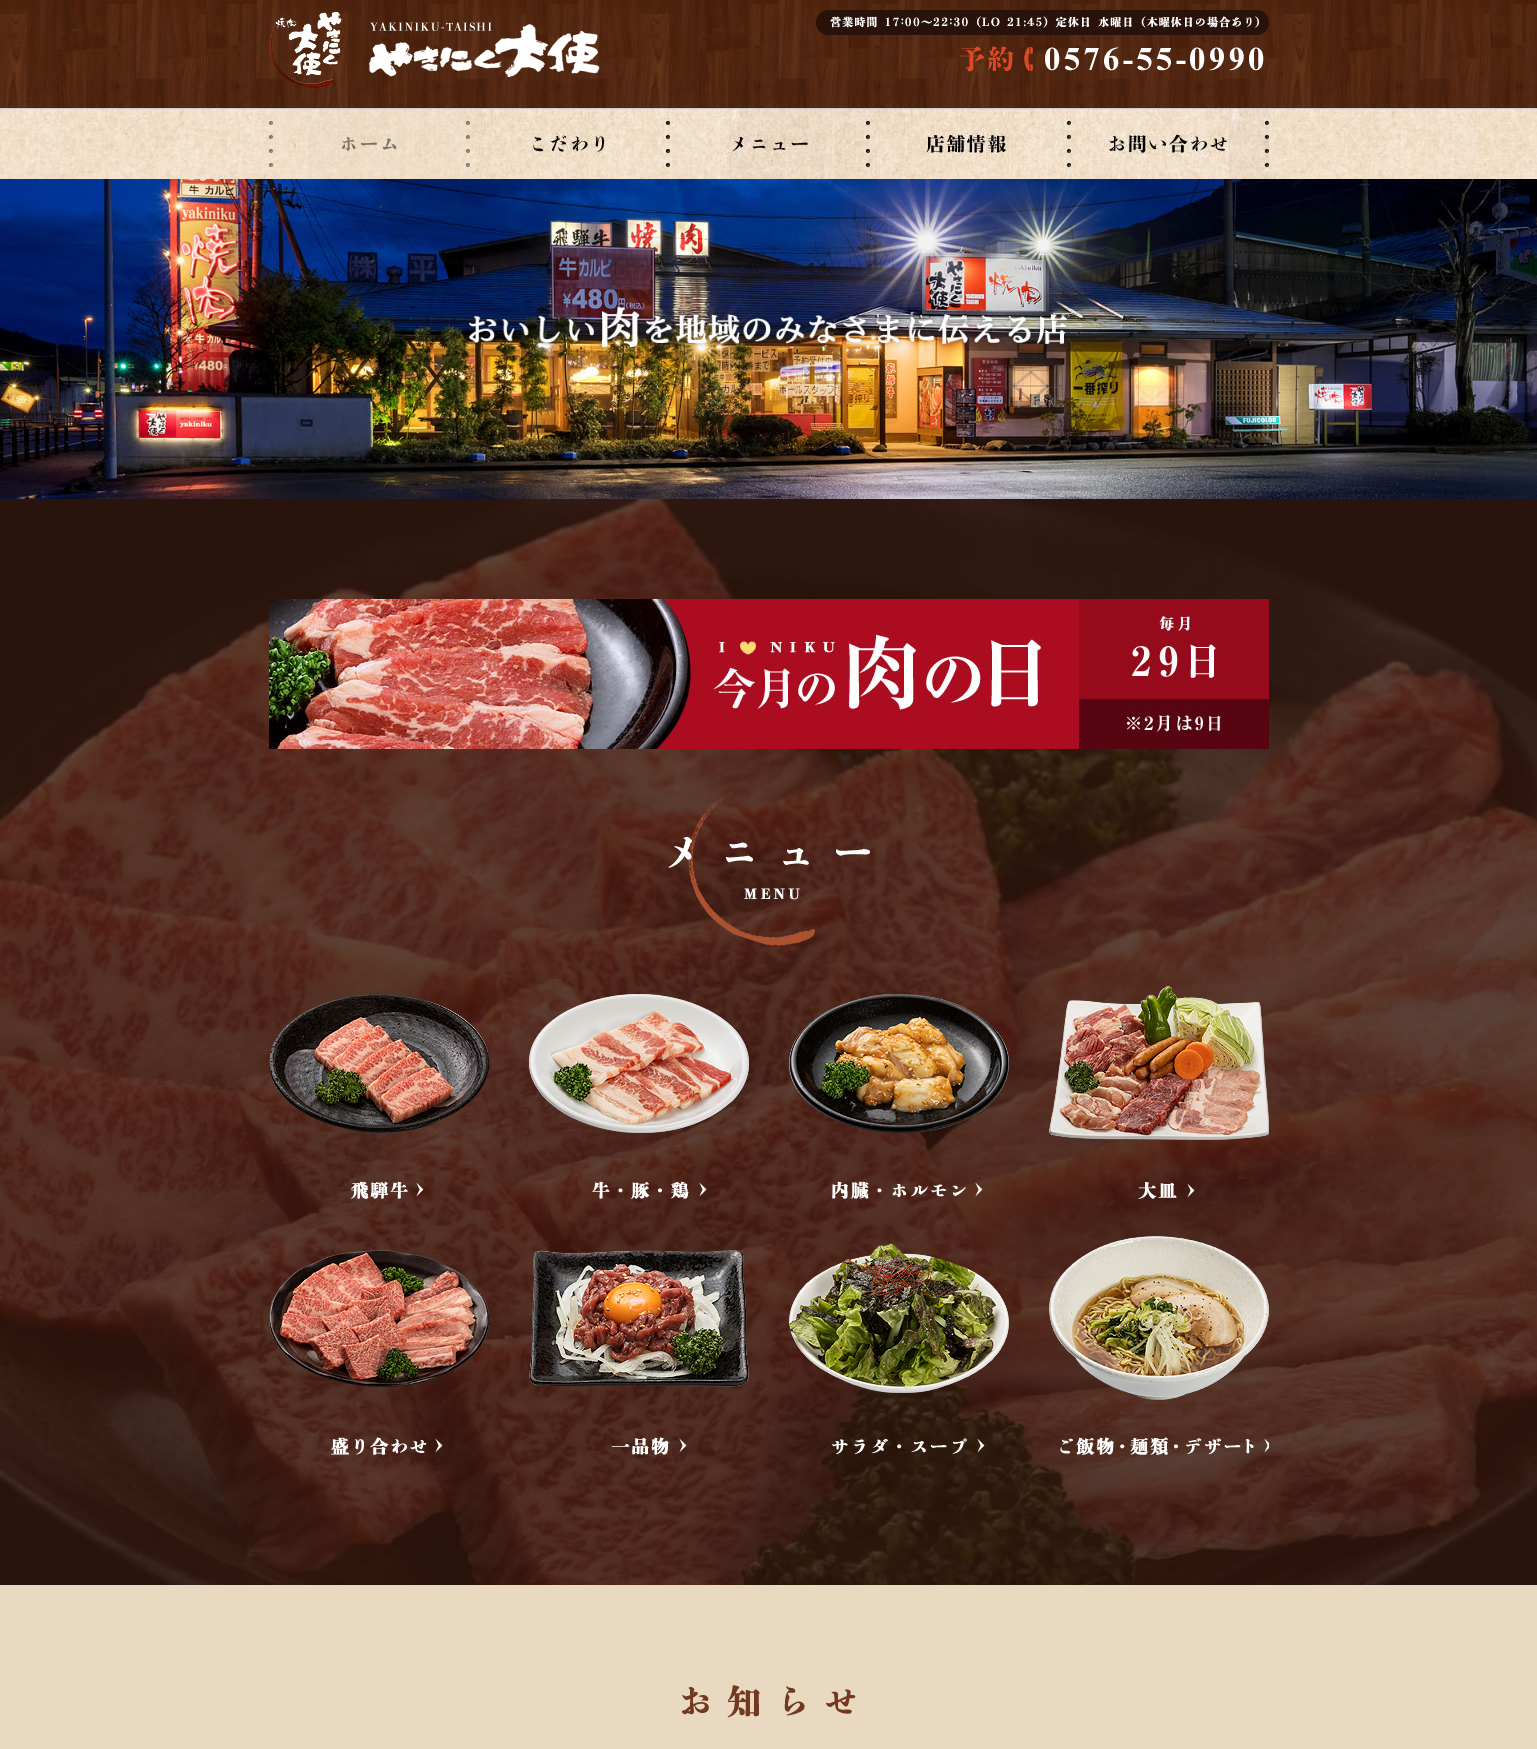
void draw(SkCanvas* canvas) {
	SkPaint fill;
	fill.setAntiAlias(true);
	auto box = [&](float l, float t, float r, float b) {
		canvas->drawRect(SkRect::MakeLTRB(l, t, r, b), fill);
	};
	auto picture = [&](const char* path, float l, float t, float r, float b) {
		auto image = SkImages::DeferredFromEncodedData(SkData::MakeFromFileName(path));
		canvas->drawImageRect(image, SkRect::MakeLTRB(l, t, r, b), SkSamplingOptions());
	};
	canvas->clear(0xFFFFFFFF);
	picture("image0.png", 0, 0, 1537, 108);
	picture("image1.png", 269, 11, 600, 88);
	picture("image2.png", 816, 10, 1269, 72);
	picture("image3.png", 0, 109, 1537, 179);
	fill.setColor(0xFFCCCCCC);
	box(0, 108, 1537, 109);
	picture("image4.png", 269, 109, 470, 179);
	picture("image5.png", 470, 109, 670, 179);
	picture("image6.png", 670, 109, 870, 179);
	picture("image7.png", 870, 109, 1071, 179);
	picture("image8.png", 1071, 109, 1269, 179);
	picture("image9.png", 0, 179, 1537, 499);
	picture("image10.png", 0, 499, 1537, 1585);
	picture("image11.png", 269, 599, 1269, 749);
	picture("image12.png", 668, 792, 870, 946);
	picture("image13.png", 269, 994, 489, 1199);
	picture("image14.png", 529, 994, 749, 1199);
	picture("image15.png", 789, 994, 1009, 1199);
	picture("image16.png", 1049, 986, 1269, 1199);
	picture("image17.png", 269, 1250, 489, 1455);
	picture("image18.png", 529, 1250, 749, 1455);
	picture("image19.png", 789, 1243, 1009, 1455);
	picture("image20.png", 1049, 1236, 1269, 1455);
	fill.setColor(0xFFE8D9C0);
	box(0, 1585, 1537, 1749);
	picture("image21.png", 682, 1685, 856, 1718);
}
